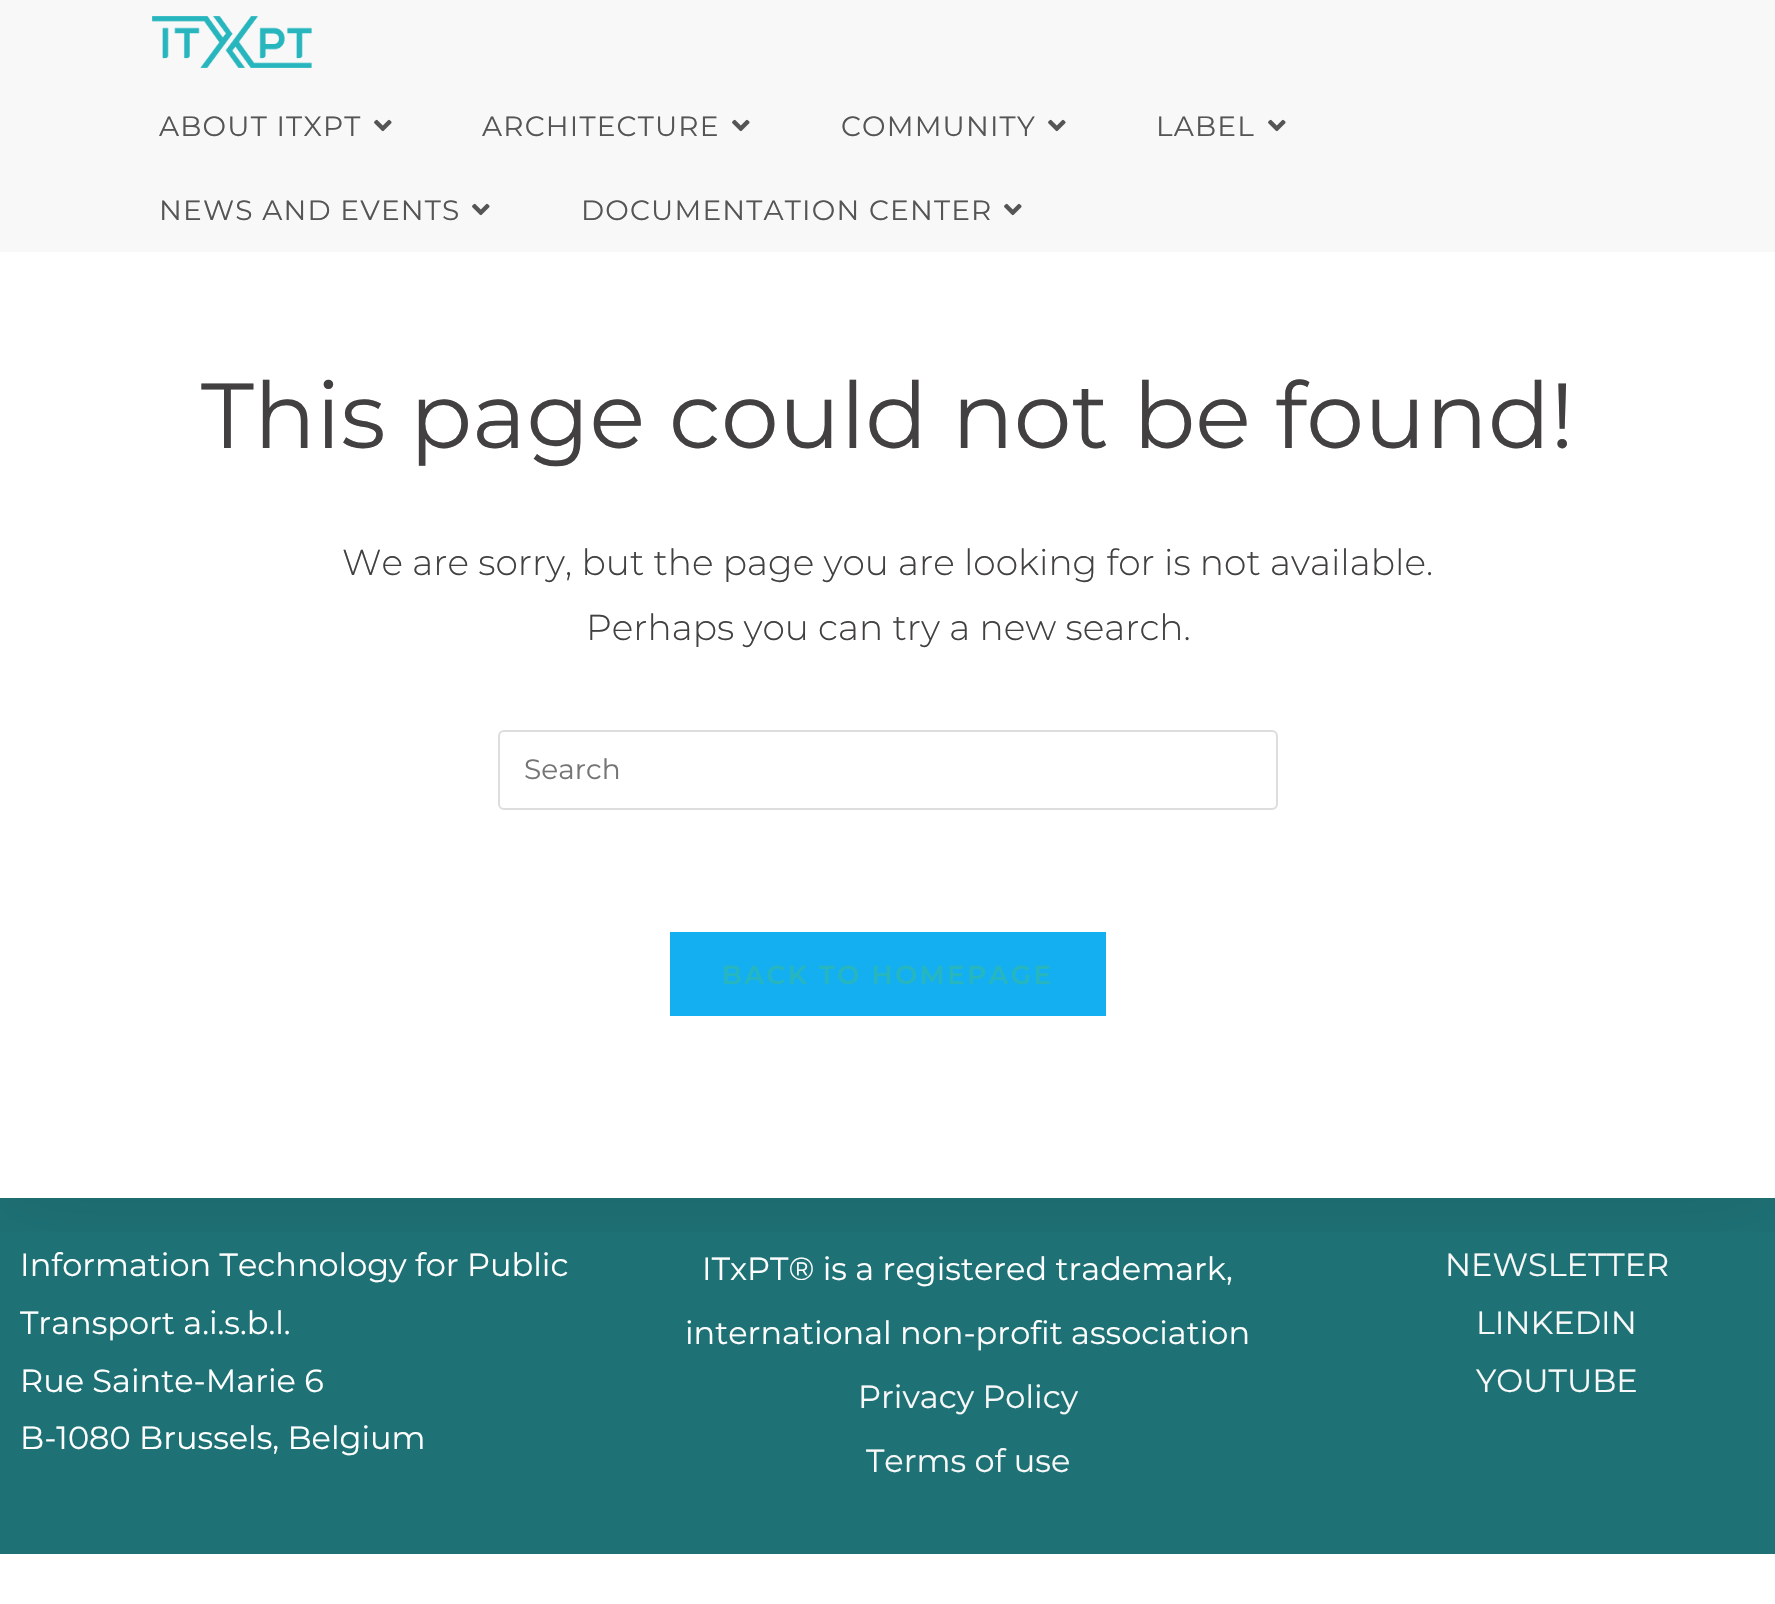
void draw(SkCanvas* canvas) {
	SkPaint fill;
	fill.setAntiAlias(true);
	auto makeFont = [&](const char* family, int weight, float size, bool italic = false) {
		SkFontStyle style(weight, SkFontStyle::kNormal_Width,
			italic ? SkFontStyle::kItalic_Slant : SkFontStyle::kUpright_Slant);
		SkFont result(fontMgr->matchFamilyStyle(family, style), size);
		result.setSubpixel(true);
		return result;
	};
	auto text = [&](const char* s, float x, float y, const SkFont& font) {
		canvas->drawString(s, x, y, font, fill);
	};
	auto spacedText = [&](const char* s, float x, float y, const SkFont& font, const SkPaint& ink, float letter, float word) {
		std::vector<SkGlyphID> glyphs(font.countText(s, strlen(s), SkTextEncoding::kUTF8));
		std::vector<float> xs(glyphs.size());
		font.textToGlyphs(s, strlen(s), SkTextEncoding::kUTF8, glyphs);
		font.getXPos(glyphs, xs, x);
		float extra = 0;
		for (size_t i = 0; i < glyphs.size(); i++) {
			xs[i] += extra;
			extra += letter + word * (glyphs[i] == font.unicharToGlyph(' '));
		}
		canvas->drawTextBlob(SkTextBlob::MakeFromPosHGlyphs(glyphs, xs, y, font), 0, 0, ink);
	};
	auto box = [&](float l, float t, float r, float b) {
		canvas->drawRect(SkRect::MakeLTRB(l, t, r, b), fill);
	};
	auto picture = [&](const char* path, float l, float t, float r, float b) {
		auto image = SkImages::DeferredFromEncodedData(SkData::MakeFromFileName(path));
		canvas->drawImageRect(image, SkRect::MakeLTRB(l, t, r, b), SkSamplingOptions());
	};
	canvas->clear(0xFFFFFFFF);
	fill.setColor(0xFF1E7175);
	box(0, 1198, 1775, 1554);
	canvas->save();
	canvas->clipRect(SkRect::MakeLTRB(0, 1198, 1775, 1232));
	fill.setColor(0x1A000000);
	fill.setMaskFilter(SkMaskFilter::MakeBlur(kNormal_SkBlurStyle, 40));
	canvas->drawRect(SkRect::MakeLTRB(0, 252, 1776, 1198), fill);
	fill.setMaskFilter(nullptr);
	canvas->restore();
	fill.setColor(0xFFF8F8F8);
	box(0, 0, 1775, 252);
	picture("image0.png", 152, 16, 312, 68);
	picture("image1.png", 374, 119, 392, 132);
	picture("image1.png", 732, 119, 750, 132);
	picture("image1.png", 1048, 119, 1066, 132);
	picture("image1.png", 1268, 119, 1286, 132);
	picture("image1.png", 472, 203, 490, 216);
	picture("image1.png", 1004, 203, 1022, 216);
	fill.setStyle(SkPaint::kStroke_Style);
	fill.setStrokeWidth(2);
	fill.setColor(0xFFDDDDDD);
	canvas->drawRoundRect(SkRect::MakeLTRB(499, 731, 1277, 809), 5, 5, fill);
	fill.setStyle(SkPaint::kFill_Style);
	fill.setColor(0xFF13AFF0);
	box(670, 932, 1106, 1016);
	auto font1 = makeFont("Montserrat", 400, 28);
	fill.setColor(0xFF555555);
	spacedText("ABOUT ITXPT", 159, 136, font1, fill, 1.2f, 0);
	spacedText("ARCHITECTURE", 482, 136, font1, fill, 1.2f, 0);
	spacedText("COMMUNITY", 841, 136, font1, fill, 1.2f, 0);
	spacedText("LABEL", 1156, 136, font1, fill, 1.2f, 0);
	spacedText("NEWS AND EVENTS", 159, 220, font1, fill, 1.2f, 0);
	spacedText("DOCUMENTATION CENTER", 581, 220, font1, fill, 1.2f, 0);
	auto font2 = makeFont("Montserrat", 400, 92);
	fill.setColor(0xFF424040);
	text("This page could not be found!", 201, 448, font2);
	auto font3 = makeFont("Montserrat", 300, 36);
	text("We are sorry, but the page you are looking for is not available.", 342, 575, font3);
	text("Perhaps you can try a new search.", 586, 640, font3);
	fill.setColor(0xFF757575);
	text("Search", 524, 779, font1);
	auto font4 = makeFont("Montserrat", 600, 26);
	fill.setColor(0xFF28B6BE);
	spacedText("BACK TO HOMEPAGE", 722, 984, font4, fill, 2.6f, 0);
	auto font5 = makeFont("Montserrat", 400, 32);
	fill.setColor(0xFFFFFFFF);
	text("Information Technology for Public", 20, 1276, font5);
	text("Transport a.i.s.b.l.", 20, 1334, font5);
	text("Rue Sainte-Marie 6", 20, 1392, font5);
	text("B-1080 Brussels, Belgium", 20, 1449, font5);
	text("ITxPT® is a registered trademark,", 702, 1280, font5);
	text("international non-profit association", 685, 1344, font5);
	fill.setColor(0xFFF8F8F8);
	text("Privacy Policy", 858, 1408, font5);
	text("Terms of use", 866, 1472, font5);
	text("NEWSLETTER", 1445, 1276, font5);
	text("LINKEDIN", 1476, 1334, font5);
	text("YOUTUBE", 1476, 1392, font5);
}
